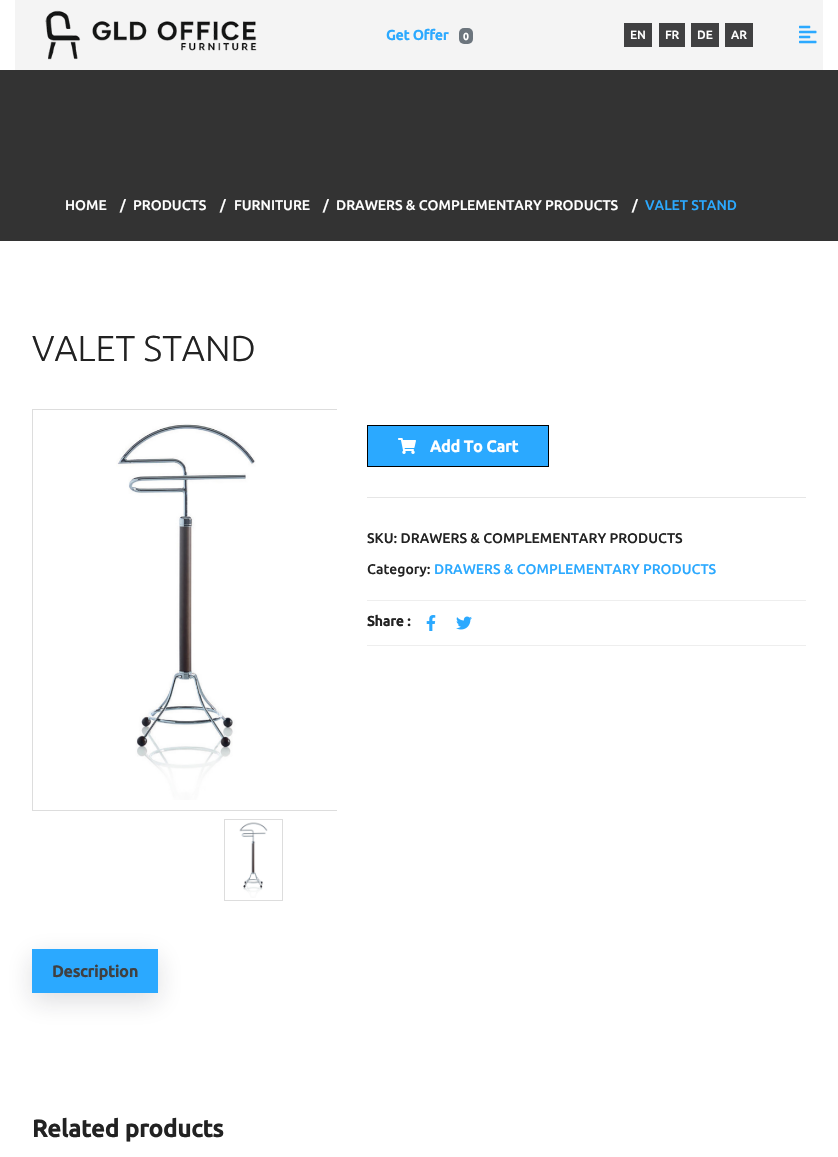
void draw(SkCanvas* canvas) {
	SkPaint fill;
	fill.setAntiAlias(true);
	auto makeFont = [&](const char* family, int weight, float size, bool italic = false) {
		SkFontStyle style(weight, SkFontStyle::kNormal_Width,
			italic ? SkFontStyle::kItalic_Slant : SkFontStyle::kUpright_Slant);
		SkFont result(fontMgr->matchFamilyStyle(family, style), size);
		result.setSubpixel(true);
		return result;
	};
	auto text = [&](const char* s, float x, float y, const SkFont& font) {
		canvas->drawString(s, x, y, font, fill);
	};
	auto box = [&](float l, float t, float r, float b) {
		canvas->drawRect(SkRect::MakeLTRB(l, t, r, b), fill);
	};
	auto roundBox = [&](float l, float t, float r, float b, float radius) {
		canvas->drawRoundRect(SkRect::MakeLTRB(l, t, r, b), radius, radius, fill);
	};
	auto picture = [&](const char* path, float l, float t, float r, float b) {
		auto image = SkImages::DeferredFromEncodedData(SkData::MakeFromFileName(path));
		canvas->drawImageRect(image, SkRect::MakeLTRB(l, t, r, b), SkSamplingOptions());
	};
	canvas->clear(0xFFFFFFFF);
	fill.setColor(0xFFF4F4F4);
	box(15, 0, 823, 70);
	picture("image0.png", 45, 10, 257, 60);
	fill.setColor(0xFF6C757D);
	roundBox(459, 28, 473, 44, 5);
	fill.setColor(0xFF404041);
	box(624, 23, 652, 47);
	box(659, 23, 685, 47);
	box(691, 23, 719, 47);
	box(725, 23, 753, 47);
	picture("image1.png", 799, 25, 817, 44);
	fill.setColor(0xFF333333);
	box(0, 70, 838, 241);
	canvas->save();
	canvas->clipRect(SkRect::MakeLTRB(32, 409, 337, 811));
	fill.setStyle(SkPaint::kStroke_Style);
	fill.setStrokeWidth(1);
	fill.setColor(0xFFDDDDDD);
	canvas->drawRect(SkRect::MakeLTRB(32.5f, 409.5f, 337.5f, 810.5f), fill);
	canvas->restore();
	picture("image2.png", 116, 423, 256, 800);
	canvas->drawRect(SkRect::MakeLTRB(224.5f, 819.5f, 282.5f, 900.5f), fill);
	picture("image3.png", 239, 822, 268, 898);
	fill.setStyle(SkPaint::kFill_Style);
	fill.setColor(0xFF2BA9FF);
	canvas->drawRect(SkRect::MakeLTRB(367.5f, 425.5f, 548.5f, 466.5f), fill);
	fill.setStyle(SkPaint::kStroke_Style);
	fill.setColor(0xFF000000);
	canvas->drawRect(SkRect::MakeLTRB(367.5f, 425.5f, 548.5f, 466.5f), fill);
	picture("image4.png", 398, 438, 416, 454);
	fill.setStyle(SkPaint::kFill_Style);
	fill.setColor(0xFFE6E6E6);
	box(367, 497, 806, 498);
	fill.setColor(0xFFEEEEEE);
	box(367, 600, 806, 601);
	box(367, 645, 806, 646);
	picture("image5.png", 426, 615, 436, 631);
	picture("image6.png", 456, 616, 472, 630);
	fill.setColor(0x261B1B29);
	fill.setMaskFilter(SkMaskFilter::MakeBlur(kNormal_SkBlurStyle, 13.5f));
	canvas->drawRect(SkRect::MakeLTRB(32, 957, 158, 1001), fill);
	fill.setMaskFilter(nullptr);
	fill.setColor(0xFF2BA9FF);
	box(32, 949, 158, 993);
	auto font1 = makeFont("Ubuntu", 700, 14);
	text("Get Offer", 386, 40, font1);
	auto font2 = makeFont("Ubuntu", 700, 10);
	fill.setColor(0xFFFFFFFF);
	text("0", 463, 40, font2);
	auto font3 = makeFont("Ubuntu", 500, 12);
	text("EN", 630, 39, font3);
	text("FR", 665, 39, font3);
	text("DE", 697, 39, font3);
	text("AR", 731, 39, font3);
	auto font4 = makeFont("Ubuntu", 500, 14);
	text("HOME", 65, 210, font4);
	text("/", 120, 210, font4);
	text("PRODUCTS", 133, 210, font4);
	text("/", 220, 210, font4);
	text("FURNITURE", 234, 210, font4);
	text("/", 323, 210, font4);
	text("DRAWERS & COMPLEMENTARY PRODUCTS", 336, 210, font4);
	text("/", 632, 210, font4);
	fill.setColor(0xFF2BA9FF);
	text("VALET STAND", 645, 210, font4);
	auto font5 = makeFont("Ubuntu", 300, 36);
	fill.setColor(0xFF222222);
	text("VALET STAND", 32, 361, font5);
	auto font6 = makeFont("Ubuntu", 700, 16);
	fill.setColor(0xFFFFFFFF);
	text("Add To Cart", 430, 452, font6);
	fill.setColor(0xFF222222);
	text("SKU: DRAWERS & COMPLEMENTARY PRODUCTS", 367, 543, font4);
	text("Category:", 367, 574, font4);
	fill.setColor(0xFF2BA9FF);
	text("DRAWERS & COMPLEMENTARY PRODUCTS", 434, 574, font4);
	fill.setColor(0xFF222222);
	text("Share :", 367, 626, font1);
	fill.setColor(0xFF404041);
	text("Description", 52, 977, font6);
	auto font7 = makeFont("Ubuntu", 700, 24);
	fill.setColor(0xFF222222);
	text("Related products", 32, 1137, font7);
}
